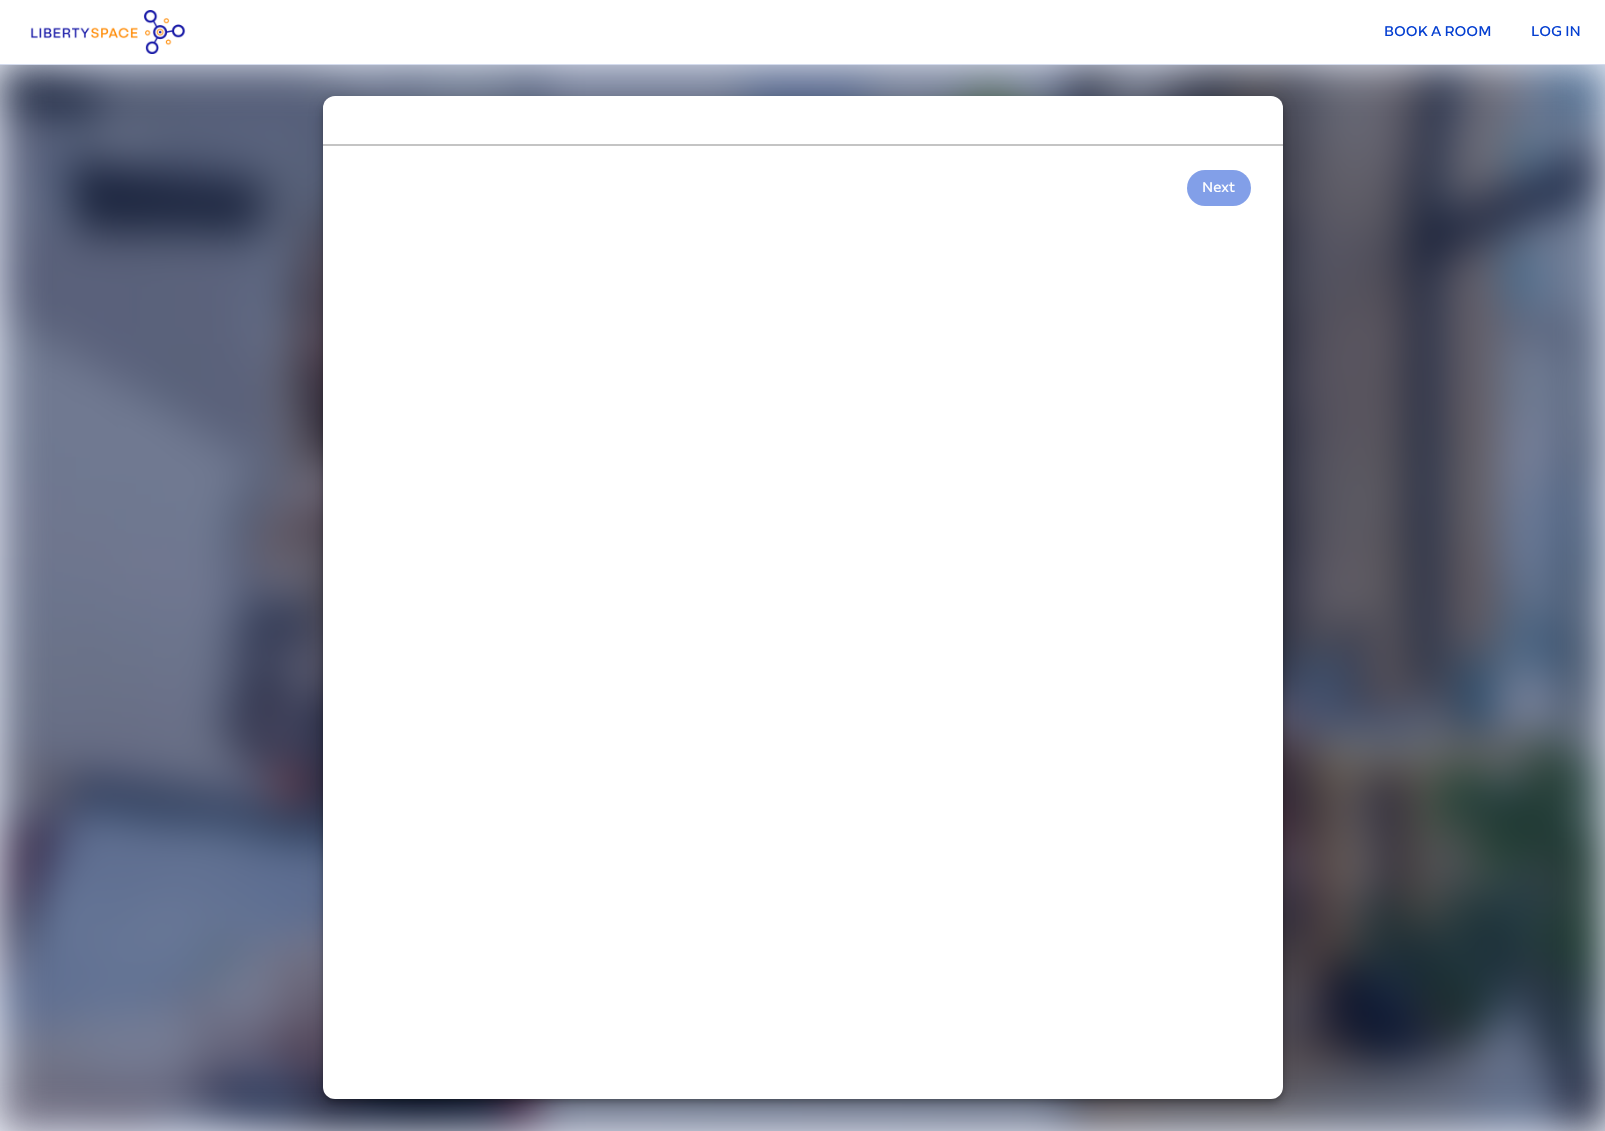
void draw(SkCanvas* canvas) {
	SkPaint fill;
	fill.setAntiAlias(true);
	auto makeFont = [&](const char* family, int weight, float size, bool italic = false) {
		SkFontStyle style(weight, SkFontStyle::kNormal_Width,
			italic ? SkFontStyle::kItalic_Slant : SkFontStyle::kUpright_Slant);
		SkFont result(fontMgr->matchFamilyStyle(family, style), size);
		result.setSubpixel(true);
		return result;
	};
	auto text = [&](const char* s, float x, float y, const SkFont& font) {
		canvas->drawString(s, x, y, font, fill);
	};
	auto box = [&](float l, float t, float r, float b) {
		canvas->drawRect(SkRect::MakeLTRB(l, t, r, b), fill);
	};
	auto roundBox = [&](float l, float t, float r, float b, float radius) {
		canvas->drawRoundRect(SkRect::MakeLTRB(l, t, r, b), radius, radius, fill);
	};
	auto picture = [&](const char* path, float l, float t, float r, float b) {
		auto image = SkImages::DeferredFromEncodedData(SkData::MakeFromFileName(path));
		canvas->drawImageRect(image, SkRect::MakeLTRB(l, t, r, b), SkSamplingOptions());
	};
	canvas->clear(0xFFF0F4FE);
	fill.setColor(0xFFFFFFFF);
	box(0, 0, 1605, 64);
	fill.setColor(0xFFD4DBED);
	box(0, 64, 1605, 65);
	picture("image0.png", 30, 10, 186, 54);
	picture("image1.png", 0, 65, 1605, 1131);
	fill.setColor(0x1F000000);
	fill.setMaskFilter(SkMaskFilter::MakeBlur(kNormal_SkBlurStyle, 9));
	canvas->drawRoundRect(SkRect::MakeLTRB(323, 97, 1283, 1100), 12, 12, fill);
	fill.setMaskFilter(nullptr);
	fill.setColor(0x24000000);
	fill.setMaskFilter(SkMaskFilter::MakeBlur(kNormal_SkBlurStyle, 5));
	canvas->drawRoundRect(SkRect::MakeLTRB(323, 102, 1283, 1105), 12, 12, fill);
	fill.setMaskFilter(nullptr);
	fill.setColor(0x33000000);
	fill.setMaskFilter(SkMaskFilter::MakeBlur(kNormal_SkBlurStyle, 2.5f));
	canvas->drawRoundRect(SkRect::MakeLTRB(324, 100, 1282, 1101), 11, 11, fill);
	fill.setMaskFilter(nullptr);
	fill.setColor(0xFFFFFFFF);
	roundBox(323, 96, 1283, 1099, 12);
	fill.setColor(0xFFC4C4C4);
	box(323, 144, 1283, 146);
	fill.setColor(0xFF829FE8);
	roundBox(1187, 170, 1251, 206, 18);
	auto font1 = makeFont("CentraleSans", 500, 14);
	fill.setColor(0xFF053FD1);
	text("BOOK A ROOM", 1384, 36, font1);
	text("LOG IN", 1531, 36, font1);
	fill.setColor(0xFFFFFFFF);
	text("Next", 1202, 192, font1);
}
